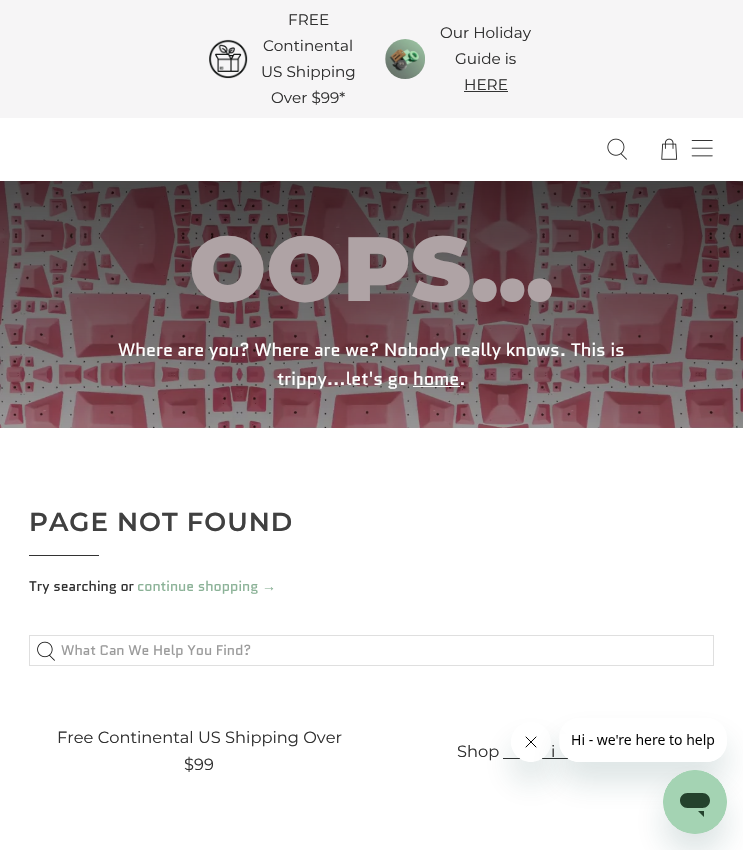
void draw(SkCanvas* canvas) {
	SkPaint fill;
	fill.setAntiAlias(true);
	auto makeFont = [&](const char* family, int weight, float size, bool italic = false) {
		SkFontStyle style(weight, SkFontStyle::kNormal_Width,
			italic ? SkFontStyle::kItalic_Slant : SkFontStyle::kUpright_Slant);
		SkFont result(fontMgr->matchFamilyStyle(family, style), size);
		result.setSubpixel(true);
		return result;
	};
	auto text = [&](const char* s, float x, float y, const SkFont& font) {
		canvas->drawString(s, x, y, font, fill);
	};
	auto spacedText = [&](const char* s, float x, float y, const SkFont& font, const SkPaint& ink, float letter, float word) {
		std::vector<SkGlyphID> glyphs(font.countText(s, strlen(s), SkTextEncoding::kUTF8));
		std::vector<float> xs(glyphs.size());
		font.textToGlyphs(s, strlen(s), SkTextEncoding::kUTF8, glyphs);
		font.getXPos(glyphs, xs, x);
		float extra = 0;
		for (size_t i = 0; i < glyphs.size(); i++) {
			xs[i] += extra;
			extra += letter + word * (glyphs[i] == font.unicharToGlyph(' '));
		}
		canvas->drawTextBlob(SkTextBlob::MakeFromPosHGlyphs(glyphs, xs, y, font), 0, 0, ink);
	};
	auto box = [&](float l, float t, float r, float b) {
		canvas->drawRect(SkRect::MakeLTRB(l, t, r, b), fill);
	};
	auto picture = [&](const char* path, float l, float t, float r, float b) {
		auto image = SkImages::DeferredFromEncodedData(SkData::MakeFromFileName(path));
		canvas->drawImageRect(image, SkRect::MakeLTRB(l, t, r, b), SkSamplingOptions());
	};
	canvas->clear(0xFFFFFFFF);
	fill.setColor(0xFFF6F5F6);
	box(0, 0, 743, 118);
	picture("image0.png", 209, 39, 248, 79);
	picture("image1.png", 385, 39, 425, 79);
	fill.setColor(0xFF333333);
	box(464, 91, 508, 92);
	picture("image2.png", 607, 138, 627, 160);
	picture("image3.png", 661, 138, 678, 160);
	picture("image4.png", 691, 140, 713, 157);
	picture("image5.png", 0, 181, 743, 428);
	fill.setColor(0xFFFFFFFF);
	box(413, 386, 460, 387);
	fill.setColor(0xFF333333);
	box(29, 555, 99, 556);
	fill.setStyle(SkPaint::kStroke_Style);
	fill.setStrokeWidth(1);
	fill.setColor(0xFFDFDFDF);
	canvas->drawRect(SkRect::MakeLTRB(29.5f, 635.5f, 713.5f, 665.5f), fill);
	picture("image6.png", 37, 641, 55, 661);
	fill.setStyle(SkPaint::kFill_Style);
	fill.setColor(0xFF303030);
	box(503, 758, 569, 759);
	canvas->save();
	canvas->clipPath(SkPathBuilder(SkPathFillType::kEvenOdd).moveTo(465, 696).lineTo(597, 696).lineTo(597, 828).lineTo(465, 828).close().moveTo(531, 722).cubicTo(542, 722, 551, 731, 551, 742).cubicTo(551, 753, 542, 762, 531, 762).cubicTo(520, 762, 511, 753, 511, 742).cubicTo(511, 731, 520, 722, 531, 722).close().detach(), true);
	fill.setColor(0x2617494D);
	fill.setMaskFilter(SkMaskFilter::MakeBlur(kNormal_SkBlurStyle, 15));
	canvas->drawRoundRect(SkRect::MakeLTRB(511, 742, 551, 782), 20, 20, fill);
	fill.setMaskFilter(nullptr);
	canvas->restore();
	picture("image8.png", 511, 736, 550, 759);
	canvas->save();
	canvas->clipPath(SkPathBuilder(SkPathFillType::kEvenOdd).moveTo(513, 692).lineTo(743, 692).lineTo(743, 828).lineTo(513, 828).close().moveTo(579, 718).lineTo(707, 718).cubicTo(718, 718, 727, 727, 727, 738).lineTo(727, 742).cubicTo(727, 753, 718, 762, 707, 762).lineTo(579, 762).cubicTo(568, 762, 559, 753, 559, 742).lineTo(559, 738).cubicTo(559, 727, 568, 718, 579, 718).close().detach(), true);
	fill.setMaskFilter(SkMaskFilter::MakeBlur(kNormal_SkBlurStyle, 15));
	canvas->drawRoundRect(SkRect::MakeLTRB(559, 738, 727, 782), 20, 20, fill);
	fill.setMaskFilter(nullptr);
	canvas->restore();
	picture("image7.png", 560, 734, 721, 762);
	fill.setMaskFilter(SkMaskFilter::MakeBlur(kNormal_SkBlurStyle, 15));
	canvas->drawRoundRect(SkRect::MakeLTRB(663, 790, 727, 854), 32, 32, fill);
	fill.setMaskFilter(nullptr);
	picture("image9.png", 663, 770, 727, 834);
	auto font1 = makeFont("Montserrat", 400, 15.25f);
	fill.setColor(0xFF303030);
	text("FREE", 288, 25, font1);
	text("Continental", 263, 51, font1);
	text("US Shipping", 261, 77, font1);
	text("Over $99*", 271, 103, font1);
	text("Our Holiday", 440, 38, font1);
	text("Guide is", 455, 64, font1);
	text("HERE", 464, 90, font1);
	auto font2 = makeFont("Montserrat", 900, 91);
	fill.setColor(0xFFAFA3A5);
	text("OOPS...", 189, 301, font2);
	auto font3 = makeFont("Quantico", 400, 18);
	fill.setColor(0xFFFFFFFF);
	text("Where are you? Where are we? Nobody really knows. This is", 118, 356, font3);
	text("trippy...let's go home.", 277, 385, font3);
	auto font4 = makeFont("Montserrat", 600, 26);
	fill.setColor(0xFF404040);
	spacedText("PAGE NOT FOUND", 29, 531, font4, fill, 1, 0);
	auto font5 = makeFont("Quantico", 400, 14);
	fill.setColor(0xFF303030);
	text("Try searching or", 29, 591, font5);
	fill.setColor(0xFF8BB297);
	text("continue shopping", 137, 591, font5);
	auto font6 = makeFont("Liberation Sans", 400, 14);
	text("→", 262, 591, font6);
	fill.setColor(0xFF9B9B9B);
	text("What Can We Help You Find?", 61, 655, font5);
	auto font7 = makeFont("Montserrat", 400, 16.25f);
	fill.setColor(0xFF303030);
	text("Free Continental US Shipping Over", 57, 743, font7);
	text("$99", 184, 770, font7);
	text("Shop", 457, 757, font7);
	text("i", 551, 757, font7);
}
